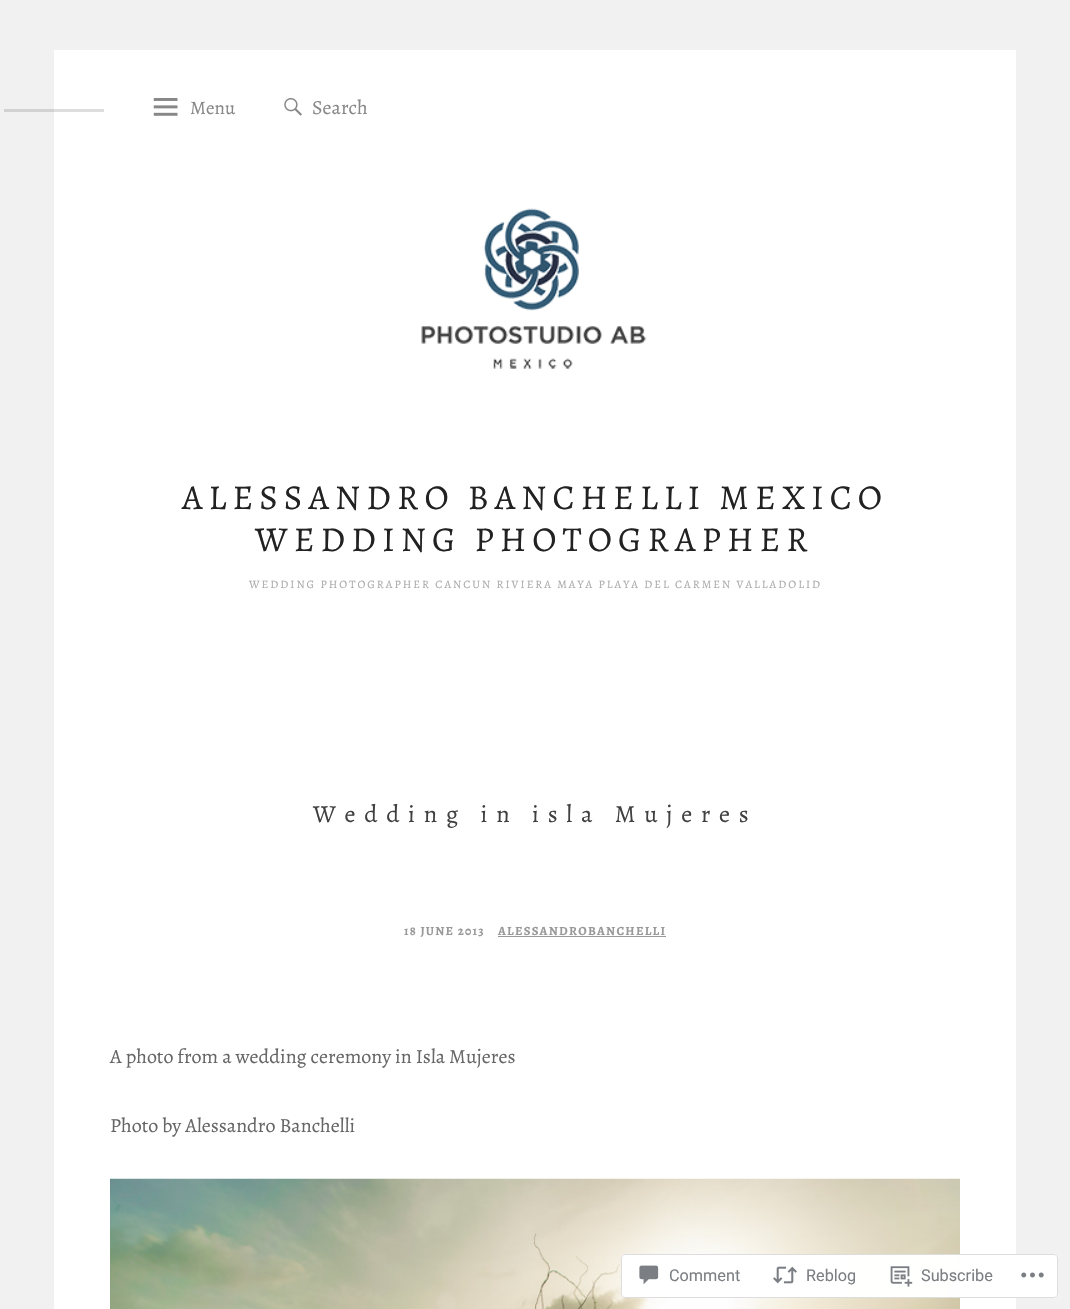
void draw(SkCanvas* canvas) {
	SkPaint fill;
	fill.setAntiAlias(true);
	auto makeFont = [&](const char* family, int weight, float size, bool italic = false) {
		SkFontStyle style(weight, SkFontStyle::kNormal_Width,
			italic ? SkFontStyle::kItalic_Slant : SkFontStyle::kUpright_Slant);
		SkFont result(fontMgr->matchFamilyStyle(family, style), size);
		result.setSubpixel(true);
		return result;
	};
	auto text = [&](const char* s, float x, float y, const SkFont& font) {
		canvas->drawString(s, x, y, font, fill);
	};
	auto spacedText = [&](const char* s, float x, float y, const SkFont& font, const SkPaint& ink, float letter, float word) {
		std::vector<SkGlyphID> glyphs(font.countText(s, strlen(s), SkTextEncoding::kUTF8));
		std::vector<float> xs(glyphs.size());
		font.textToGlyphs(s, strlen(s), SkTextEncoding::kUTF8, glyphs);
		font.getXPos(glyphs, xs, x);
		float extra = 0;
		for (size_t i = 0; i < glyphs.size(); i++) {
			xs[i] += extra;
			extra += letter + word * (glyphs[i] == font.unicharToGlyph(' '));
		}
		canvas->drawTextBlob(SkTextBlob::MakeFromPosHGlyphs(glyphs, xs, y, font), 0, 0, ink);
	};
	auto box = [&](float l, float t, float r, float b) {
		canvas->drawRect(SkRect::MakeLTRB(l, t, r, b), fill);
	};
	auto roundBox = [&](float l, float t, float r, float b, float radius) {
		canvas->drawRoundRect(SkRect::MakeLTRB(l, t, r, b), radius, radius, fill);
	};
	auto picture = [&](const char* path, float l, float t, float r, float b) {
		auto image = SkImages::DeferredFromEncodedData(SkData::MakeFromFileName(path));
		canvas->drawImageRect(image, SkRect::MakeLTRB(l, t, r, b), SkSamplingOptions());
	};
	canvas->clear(0xFFF1F1F1);
	fill.setColor(0xFFD2D2D2);
	box(4, 109, 54, 112);
	fill.setColor(0xFFFFFFFF);
	box(54, 50, 1016, 1309);
	fill.setColor(0xFFDEDEDE);
	box(54, 109, 104, 112);
	picture("image0.png", 153, 98, 178, 116);
	picture("image1.png", 284, 98, 302, 116);
	picture("image2.png", 421, 208, 647, 369);
	fill.setColor(0xFF999999);
	box(498, 936, 666, 937);
	picture("image3.png", 110, 1178, 960, 1309);
	fill.setColor(0xFAFFFFFF);
	roundBox(621, 1254, 1058, 1298, 4);
	fill.setStyle(SkPaint::kStroke_Style);
	fill.setStrokeWidth(1);
	fill.setColor(0xFADCDCDE);
	canvas->drawRoundRect(SkRect::MakeLTRB(621.5f, 1254.5f, 1057.5f, 1297.5f), 3.5f, 3.5f, fill);
	picture("image4.png", 639, 1265, 659, 1285);
	picture("image5.png", 773, 1266, 797, 1284);
	picture("image6.png", 890, 1266, 913, 1287);
	picture("image7.png", 1021, 1272, 1044, 1278);
	auto font1 = makeFont("Alegreya", 400, 19);
	fill.setStyle(SkPaint::kFill_Style);
	fill.setColor(0xFF888888);
	text("Menu", 190, 114, font1);
	auto font2 = makeFont("Alegreya", 400, 20);
	text("Search", 312, 114, font2);
	auto font3 = makeFont("Alegreya", 400, 35);
	fill.setColor(0xFF222222);
	spacedText("ALESSANDRO BANCHELLI MEXICO", 182, 509, font3, fill, 6.1f, 0);
	spacedText("WEDDING PHOTOGRAPHER", 255, 551, font3, fill, 6.1f, 0);
	auto font4 = makeFont("Alegreya", 400, 11.38f);
	fill.setColor(0xFFAAAAAA);
	spacedText("WEDDING PHOTOGRAPHER CANCUN RIVIERA MAYA PLAYA DEL CARMEN VALLADOLID", 249, 588, font4, fill, 2, 0);
	auto font5 = makeFont("Alegreya", 400, 24.5f);
	fill.setColor(0xFF404040);
	spacedText("Wedding in isla Mujeres", 313, 822, font5, fill, 8.75f, 0);
	auto font6 = makeFont("Alegreya", 700, 12.5f);
	fill.setColor(0xFF999999);
	spacedText("18 JUNE 2013", 404, 935, font6, fill, 1.25f, 0);
	spacedText("ALESSANDROBANCHELLI", 498, 935, font6, fill, 1.25f, 0);
	fill.setColor(0xFF666666);
	text("A photo from a wedding ceremony in Isla Mujeres", 110, 1063, font2);
	text("Photo by Alessandro Banchelli", 110, 1132, font2);
	auto font7 = makeFont("Roboto", 400, 16.25f);
	fill.setColor(0xFF7B7F84);
	text("Comment", 669, 1281, font7);
	text("Reblog", 806, 1281, font7);
	text("Subscribe", 921, 1281, font7);
}
